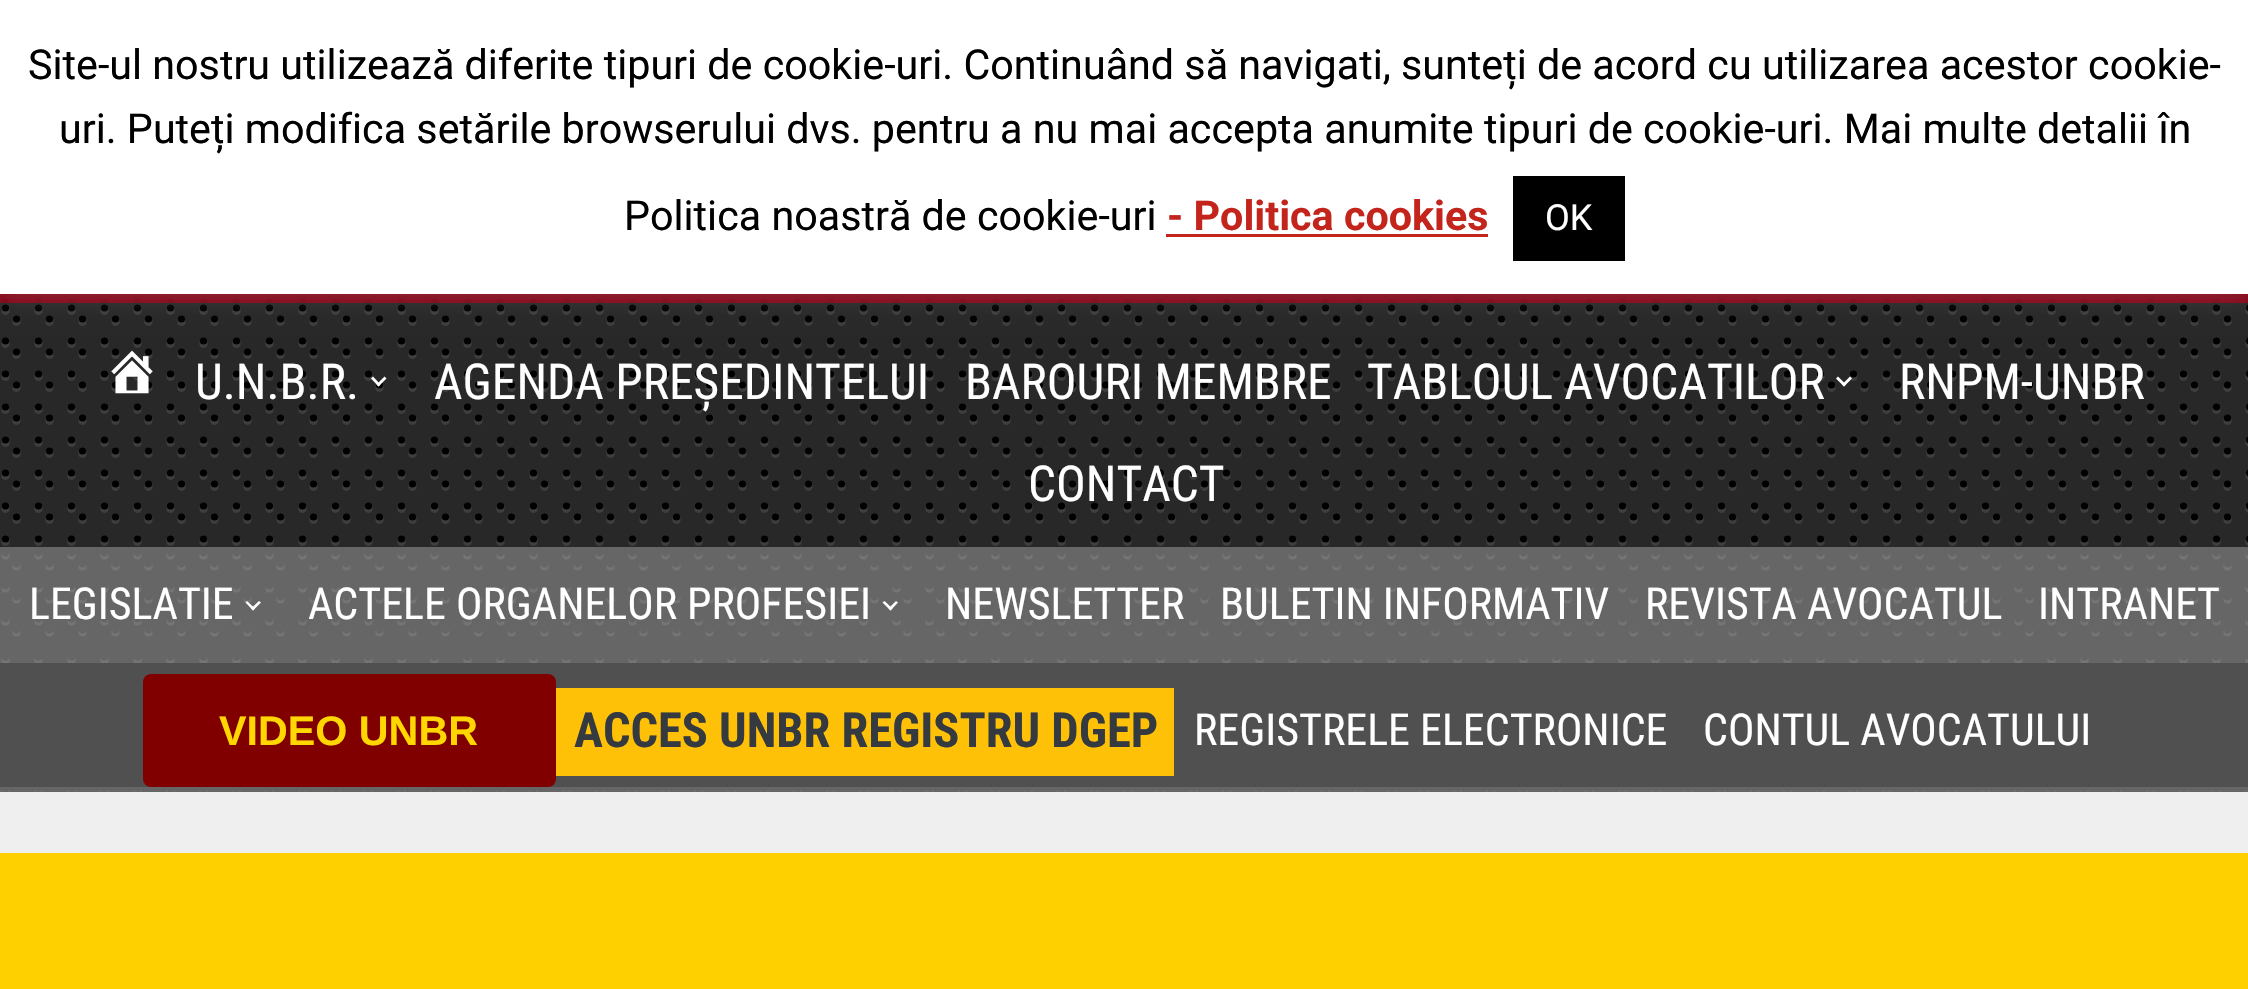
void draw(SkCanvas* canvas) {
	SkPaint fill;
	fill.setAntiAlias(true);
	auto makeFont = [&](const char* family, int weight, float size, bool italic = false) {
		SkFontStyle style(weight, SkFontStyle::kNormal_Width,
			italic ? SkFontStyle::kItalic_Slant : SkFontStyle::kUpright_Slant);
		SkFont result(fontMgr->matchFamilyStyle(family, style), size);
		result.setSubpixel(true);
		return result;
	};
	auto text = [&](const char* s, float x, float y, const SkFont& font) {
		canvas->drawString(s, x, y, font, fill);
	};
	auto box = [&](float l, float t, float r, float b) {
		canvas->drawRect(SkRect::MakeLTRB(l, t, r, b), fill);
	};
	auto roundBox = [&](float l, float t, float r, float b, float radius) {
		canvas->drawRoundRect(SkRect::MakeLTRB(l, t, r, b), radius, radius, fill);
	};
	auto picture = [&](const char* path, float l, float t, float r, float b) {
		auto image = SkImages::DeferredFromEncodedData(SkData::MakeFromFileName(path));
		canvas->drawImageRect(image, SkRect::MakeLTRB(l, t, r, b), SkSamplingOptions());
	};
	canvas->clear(0xFF860518);
	fill.setStyle(SkPaint::kStroke_Style);
	fill.setStrokeWidth(7.2f);
	fill.setStrokeCap(SkPaint::kRound_Cap);
	fill.setColor(0xFF7A0516);
	fill.setPathEffect(SkDashPathEffect::Make({{0, 33}}, 0));
	canvas->drawPath(SkPathBuilder().moveTo(5.5f, 302.5f).lineTo(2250.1f, 302.5f).detach(), fill);
	fill.setPathEffect(nullptr);
	fill.setStyle(SkPaint::kFill_Style);
	fill.setColor(0xFF282828);
	box(0, 303, 2248, 547);
	fill.setStyle(SkPaint::kStroke_Style);
	fill.setStrokeWidth(8.2f);
	fill.setColor(0xFF3E3E3E);
	fill.setPathEffect(SkDashPathEffect::Make({{0, 33}}, 0));
	canvas->drawPath(SkPathBuilder().moveTo(5.5f, 310.8f).lineTo(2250.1f, 310.8f).detach(), fill);
	fill.setPathEffect(nullptr);
	fill.setPathEffect(SkDashPathEffect::Make({{0, 33}}, 0));
	canvas->drawPath(SkPathBuilder().moveTo(16.5f, 321.8f).lineTo(2228.1f, 321.8f).detach(), fill);
	fill.setPathEffect(nullptr);
	fill.setStrokeWidth(7.2f);
	fill.setColor(0xFF000000);
	fill.setPathEffect(SkDashPathEffect::Make({{0, 33}}, 0));
	canvas->drawPath(SkPathBuilder().moveTo(5.5f, 308).lineTo(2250.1f, 308).detach(), fill);
	fill.setPathEffect(nullptr);
	fill.setPathEffect(SkDashPathEffect::Make({{0, 33}}, 0));
	canvas->drawPath(SkPathBuilder().moveTo(16.5f, 319).lineTo(2228.1f, 319).detach(), fill);
	fill.setPathEffect(nullptr);
	fill.setStyle(SkPaint::kFill_Style);
	fill.setColor(0x4DACABAB);
	fill.setMaskFilter(SkMaskFilter::MakeBlur(kNormal_SkBlurStyle, 14));
	canvas->drawRect(SkRect::MakeLTRB(0, -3, 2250, 292), fill);
	fill.setMaskFilter(nullptr);
	fill.setColor(0xFFFFFFFF);
	box(0, 0, 2248, 294);
	fill.setColor(0xFFC3251D);
	box(1166, 234, 1488, 237);
	fill.setColor(0xFF000000);
	box(1513, 176, 1625, 261);
	fill.setStyle(SkPaint::kStroke_Style);
	fill.setStrokeWidth(8.2f);
	fill.setColor(0xFF3E3E3E);
	fill.setPathEffect(SkDashPathEffect::Make({{0, 33}}, 0));
	canvas->drawPath(SkPathBuilder().moveTo(5.5f, 343.8f).lineTo(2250.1f, 343.8f).detach(), fill);
	fill.setPathEffect(nullptr);
	fill.setPathEffect(SkDashPathEffect::Make({{0, 33}}, 0));
	canvas->drawPath(SkPathBuilder().moveTo(5.5f, 376.8f).lineTo(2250.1f, 376.8f).detach(), fill);
	fill.setPathEffect(nullptr);
	fill.setPathEffect(SkDashPathEffect::Make({{0, 33}}, 0));
	canvas->drawPath(SkPathBuilder().moveTo(5.5f, 409.8f).lineTo(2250.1f, 409.8f).detach(), fill);
	fill.setPathEffect(nullptr);
	fill.setPathEffect(SkDashPathEffect::Make({{0, 33}}, 0));
	canvas->drawPath(SkPathBuilder().moveTo(5.5f, 442.8f).lineTo(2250.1f, 442.8f).detach(), fill);
	fill.setPathEffect(nullptr);
	fill.setPathEffect(SkDashPathEffect::Make({{0, 33}}, 0));
	canvas->drawPath(SkPathBuilder().moveTo(5.5f, 475.8f).lineTo(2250.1f, 475.8f).detach(), fill);
	fill.setPathEffect(nullptr);
	fill.setPathEffect(SkDashPathEffect::Make({{0, 33}}, 0));
	canvas->drawPath(SkPathBuilder().moveTo(5.5f, 508.8f).lineTo(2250.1f, 508.8f).detach(), fill);
	fill.setPathEffect(nullptr);
	fill.setPathEffect(SkDashPathEffect::Make({{0, 33}}, 0));
	canvas->drawPath(SkPathBuilder().moveTo(5.5f, 541.8f).lineTo(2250.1f, 541.8f).detach(), fill);
	fill.setPathEffect(nullptr);
	fill.setPathEffect(SkDashPathEffect::Make({{0, 33}}, 0));
	canvas->drawPath(SkPathBuilder().moveTo(16.5f, 354.8f).lineTo(2228.1f, 354.8f).detach(), fill);
	fill.setPathEffect(nullptr);
	fill.setPathEffect(SkDashPathEffect::Make({{0, 33}}, 0));
	canvas->drawPath(SkPathBuilder().moveTo(16.5f, 387.8f).lineTo(2228.1f, 387.8f).detach(), fill);
	fill.setPathEffect(nullptr);
	fill.setPathEffect(SkDashPathEffect::Make({{0, 33}}, 0));
	canvas->drawPath(SkPathBuilder().moveTo(16.5f, 420.8f).lineTo(2228.1f, 420.8f).detach(), fill);
	fill.setPathEffect(nullptr);
	fill.setPathEffect(SkDashPathEffect::Make({{0, 33}}, 0));
	canvas->drawPath(SkPathBuilder().moveTo(16.5f, 453.8f).lineTo(2228.1f, 453.8f).detach(), fill);
	fill.setPathEffect(nullptr);
	fill.setPathEffect(SkDashPathEffect::Make({{0, 33}}, 0));
	canvas->drawPath(SkPathBuilder().moveTo(16.5f, 486.8f).lineTo(2228.1f, 486.8f).detach(), fill);
	fill.setPathEffect(nullptr);
	fill.setPathEffect(SkDashPathEffect::Make({{0, 33}}, 0));
	canvas->drawPath(SkPathBuilder().moveTo(16.5f, 519.8f).lineTo(2228.1f, 519.8f).detach(), fill);
	fill.setPathEffect(nullptr);
	fill.setStrokeWidth(7.2f);
	fill.setColor(0xFF000000);
	fill.setPathEffect(SkDashPathEffect::Make({{0, 33}}, 0));
	canvas->drawPath(SkPathBuilder().moveTo(5.5f, 341).lineTo(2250.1f, 341).detach(), fill);
	fill.setPathEffect(nullptr);
	fill.setPathEffect(SkDashPathEffect::Make({{0, 33}}, 0));
	canvas->drawPath(SkPathBuilder().moveTo(5.5f, 374).lineTo(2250.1f, 374).detach(), fill);
	fill.setPathEffect(nullptr);
	fill.setPathEffect(SkDashPathEffect::Make({{0, 33}}, 0));
	canvas->drawPath(SkPathBuilder().moveTo(5.5f, 407).lineTo(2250.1f, 407).detach(), fill);
	fill.setPathEffect(nullptr);
	fill.setPathEffect(SkDashPathEffect::Make({{0, 33}}, 0));
	canvas->drawPath(SkPathBuilder().moveTo(5.5f, 440).lineTo(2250.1f, 440).detach(), fill);
	fill.setPathEffect(nullptr);
	fill.setPathEffect(SkDashPathEffect::Make({{0, 33}}, 0));
	canvas->drawPath(SkPathBuilder().moveTo(5.5f, 473).lineTo(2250.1f, 473).detach(), fill);
	fill.setPathEffect(nullptr);
	fill.setPathEffect(SkDashPathEffect::Make({{0, 33}}, 0));
	canvas->drawPath(SkPathBuilder().moveTo(5.5f, 506).lineTo(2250.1f, 506).detach(), fill);
	fill.setPathEffect(nullptr);
	fill.setPathEffect(SkDashPathEffect::Make({{0, 33}}, 0));
	canvas->drawPath(SkPathBuilder().moveTo(5.5f, 539).lineTo(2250.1f, 539).detach(), fill);
	fill.setPathEffect(nullptr);
	fill.setPathEffect(SkDashPathEffect::Make({{0, 33}}, 0));
	canvas->drawPath(SkPathBuilder().moveTo(16.5f, 352).lineTo(2228.1f, 352).detach(), fill);
	fill.setPathEffect(nullptr);
	fill.setPathEffect(SkDashPathEffect::Make({{0, 33}}, 0));
	canvas->drawPath(SkPathBuilder().moveTo(16.5f, 385).lineTo(2228.1f, 385).detach(), fill);
	fill.setPathEffect(nullptr);
	fill.setPathEffect(SkDashPathEffect::Make({{0, 33}}, 0));
	canvas->drawPath(SkPathBuilder().moveTo(16.5f, 418).lineTo(2228.1f, 418).detach(), fill);
	fill.setPathEffect(nullptr);
	fill.setPathEffect(SkDashPathEffect::Make({{0, 33}}, 0));
	canvas->drawPath(SkPathBuilder().moveTo(16.5f, 451).lineTo(2228.1f, 451).detach(), fill);
	fill.setPathEffect(nullptr);
	fill.setPathEffect(SkDashPathEffect::Make({{0, 33}}, 0));
	canvas->drawPath(SkPathBuilder().moveTo(16.5f, 484).lineTo(2228.1f, 484).detach(), fill);
	fill.setPathEffect(nullptr);
	fill.setPathEffect(SkDashPathEffect::Make({{0, 33}}, 0));
	canvas->drawPath(SkPathBuilder().moveTo(16.5f, 517).lineTo(2228.1f, 517).detach(), fill);
	fill.setPathEffect(nullptr);
	picture("image0.png", 111, 350, 153, 394);
	fill.setStyle(SkPaint::kFill_Style);
	fill.setColor(0xFFFFFFFF);
	canvas->drawPath(SkPathBuilder().moveTo(384.5f, 376.5f).lineTo(386.5f, 378.5f).lineTo(378.5f, 386.5f).lineTo(376.5f, 384.5f).close().detach(), fill);
	canvas->drawPath(SkPathBuilder().moveTo(373, 376.5f).lineTo(380.5f, 384.5f).lineTo(378.5f, 386.5f).lineTo(371, 378.5f).close().detach(), fill);
	canvas->drawPath(SkPathBuilder().moveTo(1850, 376.5f).lineTo(1852, 378.5f).lineTo(1844, 386.5f).lineTo(1842, 384.5f).close().detach(), fill);
	canvas->drawPath(SkPathBuilder().moveTo(1838, 376.5f).lineTo(1846, 384.5f).lineTo(1844, 386.5f).lineTo(1836, 378.5f).close().detach(), fill);
	fill.setColor(0xFF666666);
	box(0, 547, 2248, 652);
	fill.setStyle(SkPaint::kStroke_Style);
	fill.setStrokeWidth(8.2f);
	fill.setColor(0xFF757575);
	fill.setPathEffect(SkDashPathEffect::Make({{0, 33}}, 0));
	canvas->drawPath(SkPathBuilder().moveTo(5.5f, 555.5f).lineTo(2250.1f, 555.5f).detach(), fill);
	fill.setPathEffect(nullptr);
	fill.setPathEffect(SkDashPathEffect::Make({{0, 33}}, 0));
	canvas->drawPath(SkPathBuilder().moveTo(5.5f, 588.5f).lineTo(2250.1f, 588.5f).detach(), fill);
	fill.setPathEffect(nullptr);
	fill.setPathEffect(SkDashPathEffect::Make({{0, 33}}, 0));
	canvas->drawPath(SkPathBuilder().moveTo(5.5f, 621.5f).lineTo(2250.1f, 621.5f).detach(), fill);
	fill.setPathEffect(nullptr);
	fill.setPathEffect(SkDashPathEffect::Make({{0, 33}}, 0));
	canvas->drawPath(SkPathBuilder().moveTo(16.5f, 566.5f).lineTo(2228.1f, 566.5f).detach(), fill);
	fill.setPathEffect(nullptr);
	fill.setPathEffect(SkDashPathEffect::Make({{0, 33}}, 0));
	canvas->drawPath(SkPathBuilder().moveTo(16.5f, 599.5f).lineTo(2228.1f, 599.5f).detach(), fill);
	fill.setPathEffect(nullptr);
	fill.setPathEffect(SkDashPathEffect::Make({{0, 33}}, 0));
	canvas->drawPath(SkPathBuilder().moveTo(16.5f, 632.5f).lineTo(2228.1f, 632.5f).detach(), fill);
	fill.setPathEffect(nullptr);
	fill.setStrokeWidth(7.2f);
	fill.setColor(0xFF666666);
	fill.setPathEffect(SkDashPathEffect::Make({{0, 33}}, 0));
	canvas->drawPath(SkPathBuilder().moveTo(5.5f, 552.8f).lineTo(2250.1f, 552.8f).detach(), fill);
	fill.setPathEffect(nullptr);
	fill.setPathEffect(SkDashPathEffect::Make({{0, 33}}, 0));
	canvas->drawPath(SkPathBuilder().moveTo(5.5f, 585.8f).lineTo(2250.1f, 585.8f).detach(), fill);
	fill.setPathEffect(nullptr);
	fill.setPathEffect(SkDashPathEffect::Make({{0, 33}}, 0));
	canvas->drawPath(SkPathBuilder().moveTo(5.5f, 618.8f).lineTo(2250.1f, 618.8f).detach(), fill);
	fill.setPathEffect(nullptr);
	fill.setPathEffect(SkDashPathEffect::Make({{0, 33}}, 0));
	canvas->drawPath(SkPathBuilder().moveTo(5.5f, 651.8f).lineTo(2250.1f, 651.8f).detach(), fill);
	fill.setPathEffect(nullptr);
	fill.setPathEffect(SkDashPathEffect::Make({{0, 33}}, 0));
	canvas->drawPath(SkPathBuilder().moveTo(16.5f, 563.8f).lineTo(2228.1f, 563.8f).detach(), fill);
	fill.setPathEffect(nullptr);
	fill.setPathEffect(SkDashPathEffect::Make({{0, 33}}, 0));
	canvas->drawPath(SkPathBuilder().moveTo(16.5f, 596.8f).lineTo(2228.1f, 596.8f).detach(), fill);
	fill.setPathEffect(nullptr);
	fill.setPathEffect(SkDashPathEffect::Make({{0, 33}}, 0));
	canvas->drawPath(SkPathBuilder().moveTo(16.5f, 629.8f).lineTo(2228.1f, 629.8f).detach(), fill);
	fill.setPathEffect(nullptr);
	fill.setStyle(SkPaint::kFill_Style);
	fill.setColor(0xFFFFFFFF);
	canvas->drawPath(SkPathBuilder().moveTo(259, 601).lineTo(261, 602.5f).lineTo(253, 610.5f).lineTo(251, 608.5f).close().detach(), fill);
	canvas->drawPath(SkPathBuilder().moveTo(247, 601).lineTo(255, 608.5f).lineTo(253, 610.5f).lineTo(245.5f, 602.5f).close().detach(), fill);
	canvas->drawPath(SkPathBuilder().moveTo(896, 601).lineTo(898, 602.5f).lineTo(890.5f, 610.5f).lineTo(888.5f, 608.5f).close().detach(), fill);
	canvas->drawPath(SkPathBuilder().moveTo(884.5f, 601).lineTo(892.5f, 608.5f).lineTo(890.5f, 610.5f).lineTo(882.5f, 602.5f).close().detach(), fill);
	fill.setColor(0xFF666666);
	box(0, 652, 2248, 792);
	fill.setStyle(SkPaint::kStroke_Style);
	fill.setStrokeWidth(8.2f);
	fill.setColor(0xFF757575);
	fill.setPathEffect(SkDashPathEffect::Make({{0, 33}}, 0));
	canvas->drawPath(SkPathBuilder().moveTo(5.5f, 660).lineTo(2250.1f, 660).detach(), fill);
	fill.setPathEffect(nullptr);
	fill.setColor(0x1AFFFFFF);
	fill.setPathEffect(SkDashPathEffect::Make({{0, 33}}, 0));
	canvas->drawPath(SkPathBuilder().moveTo(5.5f, 792).lineTo(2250.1f, 792).detach(), fill);
	fill.setPathEffect(nullptr);
	fill.setStrokeWidth(7.2f);
	fill.setColor(0xFF666666);
	fill.setPathEffect(SkDashPathEffect::Make({{0, 33}}, 0));
	canvas->drawPath(SkPathBuilder().moveTo(5.5f, 657.2f).lineTo(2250.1f, 657.2f).detach(), fill);
	fill.setPathEffect(nullptr);
	fill.setPathEffect(SkDashPathEffect::Make({{0, 33}}, 0));
	canvas->drawPath(SkPathBuilder().moveTo(5.5f, 789.2f).lineTo(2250.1f, 789.2f).detach(), fill);
	fill.setPathEffect(nullptr);
	fill.setStyle(SkPaint::kFill_Style);
	fill.setColor(0xFF505050);
	box(0, 663, 2248, 787);
	fill.setColor(0xFF800000);
	roundBox(143, 674, 556, 787, 8);
	fill.setColor(0xFFFFC107);
	box(556, 688, 1174, 776);
	fill.setColor(0xFFEFEFEF);
	box(0, 792, 2248, 853);
	fill.setColor(0xFFFFD000);
	box(0, 853, 2248, 989);
	auto font1 = makeFont("Roboto", 400, 41.25f);
	fill.setColor(0xFF000000);
	text("Site-ul nostru utilizează diferite tipuri de cookie-uri. Continuând să navigati, sunteți de acord cu utilizarea acestor cookie-", 28, 79, font1);
	text("uri. Puteți modifica setările browserului dvs. pentru a nu mai accepta anumite tipuri de cookie-uri. Mai multe detalii în", 59, 143, font1);
	text("Politica noastră de cookie-uri", 624, 230, font1);
	auto font2 = makeFont("Roboto", 700, 41.25f);
	fill.setColor(0xFFC3251D);
	text("- Politica cookies", 1167, 230, font2);
	auto font3 = makeFont("Roboto", 400, 36);
	fill.setColor(0xFFFFFFFF);
	text("OK", 1545, 230, font3);
	auto font4 = makeFont("Roboto Condensed", 400, 49.5f);
	text("U.N.B.R.", 195, 399, font4);
	text("AGENDA PREȘEDINTELUI", 434, 399, font4);
	text("BAROURI MEMBRE", 965, 399, font4);
	text("TABLOUL AVOCATILOR", 1367, 399, font4);
	text("RNPM-UNBR", 1899, 399, font4);
	text("CONTACT", 1028, 501, font4);
	auto font5 = makeFont("Roboto Condensed", 400, 44);
	text("LEGISLATIE", 29, 619, font5);
	text("ACTELE ORGANELOR PROFESIEI", 308, 619, font5);
	text("NEWSLETTER", 945, 619, font5);
	text("BULETIN INFORMATIV", 1220, 619, font5);
	text("REVISTA AVOCATUL", 1645, 619, font5);
	text("INTRANET", 2038, 619, font5);
	auto font6 = makeFont("Liberation Sans", 700, 41.25f);
	fill.setColor(0xFFFFD700);
	text("VIDEO UNBR", 219, 745, font6);
	auto font7 = makeFont("Roboto Condensed", 700, 48.4f);
	fill.setColor(0xFF343A40);
	text("ACCES UNBR REGISTRU DGEP", 574, 747, font7);
	fill.setColor(0xFFFFFFFF);
	text("REGISTRELE ELECTRONICE", 1194, 745, font5);
	text("CONTUL AVOCATULUI", 1703, 745, font5);
}
